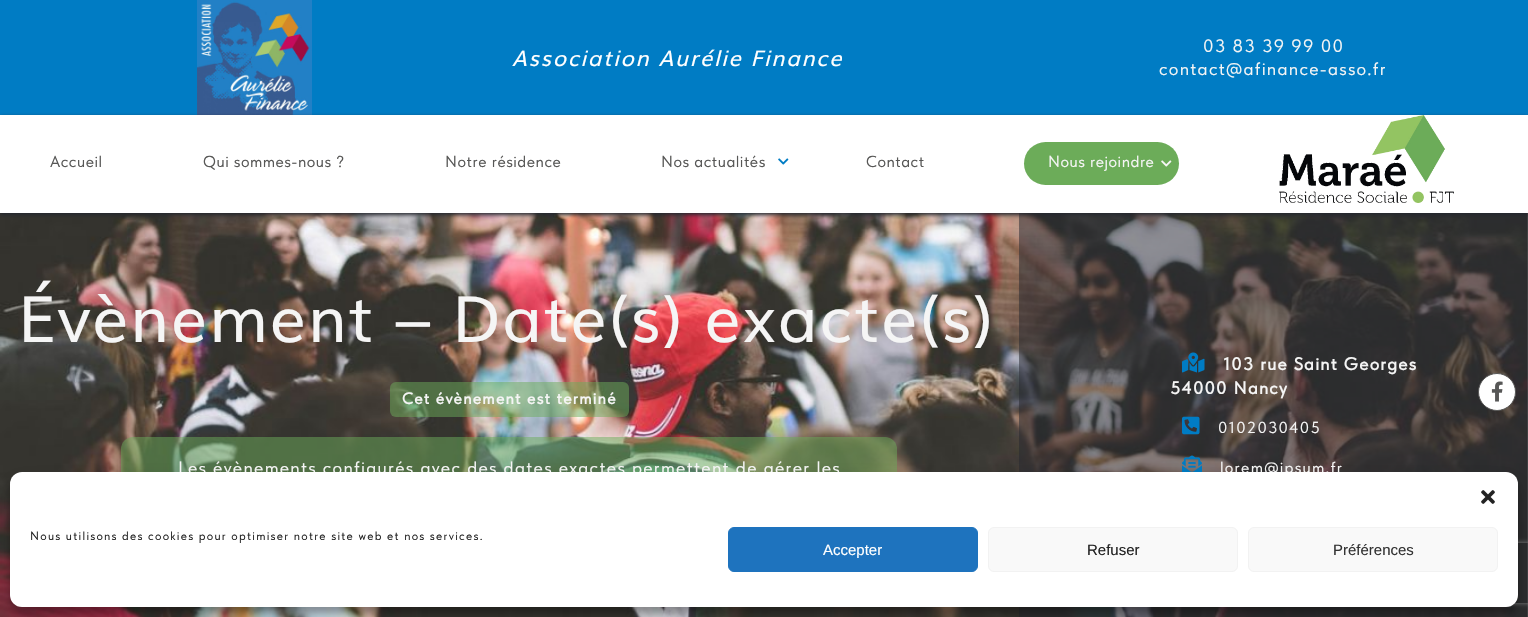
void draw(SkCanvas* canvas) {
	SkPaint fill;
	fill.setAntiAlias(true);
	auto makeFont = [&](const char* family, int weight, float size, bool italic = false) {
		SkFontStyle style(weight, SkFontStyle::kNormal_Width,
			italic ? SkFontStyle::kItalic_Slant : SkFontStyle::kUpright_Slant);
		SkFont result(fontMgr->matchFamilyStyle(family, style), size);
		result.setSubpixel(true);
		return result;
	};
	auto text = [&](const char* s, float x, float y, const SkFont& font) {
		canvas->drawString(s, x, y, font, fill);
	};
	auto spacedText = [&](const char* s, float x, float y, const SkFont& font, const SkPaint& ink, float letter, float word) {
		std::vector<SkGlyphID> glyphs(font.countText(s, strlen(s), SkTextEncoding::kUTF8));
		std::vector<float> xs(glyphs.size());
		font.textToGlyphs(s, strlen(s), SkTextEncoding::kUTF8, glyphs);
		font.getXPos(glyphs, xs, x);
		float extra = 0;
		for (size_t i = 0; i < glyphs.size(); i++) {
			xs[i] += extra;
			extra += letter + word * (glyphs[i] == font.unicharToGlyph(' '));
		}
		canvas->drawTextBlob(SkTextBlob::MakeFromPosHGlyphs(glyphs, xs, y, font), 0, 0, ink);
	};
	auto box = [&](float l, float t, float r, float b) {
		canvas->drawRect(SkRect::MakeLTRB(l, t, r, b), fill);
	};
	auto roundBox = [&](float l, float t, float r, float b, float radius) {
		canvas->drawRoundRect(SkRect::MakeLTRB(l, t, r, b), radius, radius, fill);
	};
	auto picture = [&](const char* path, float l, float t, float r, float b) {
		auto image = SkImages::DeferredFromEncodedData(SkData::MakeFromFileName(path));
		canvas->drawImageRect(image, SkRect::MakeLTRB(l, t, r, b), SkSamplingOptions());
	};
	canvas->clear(0xFFFFFFFF);
	fill.setColor(0xFF007CC4);
	box(0, 0, 1528, 115);
	picture("image0.png", 197, 0, 312, 115);
	picture("image5.png", 0, 213, 1528, 617);
	fill.setColor(0x8023262D);
	box(1019, 213, 1528, 617);
	canvas->save();
	canvas->clipPath(SkPathBuilder(SkPathFillType::kEvenOdd).moveTo(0, 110).lineTo(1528, 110).lineTo(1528, 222).lineTo(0, 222).close().moveTo(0, 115).lineTo(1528, 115).lineTo(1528, 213).lineTo(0, 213).close().detach(), true);
	fill.setColor(0xFF23262D);
	fill.setMaskFilter(SkMaskFilter::MakeBlur(kNormal_SkBlurStyle, 2));
	canvas->drawRect(SkRect::MakeLTRB(0, 117, 1528, 215), fill);
	fill.setMaskFilter(nullptr);
	canvas->restore();
	picture("image1.png", 778, 158, 789, 165);
	fill.setColor(0xFF6CAC59);
	roundBox(1024, 142, 1179, 185, 21.5f);
	picture("image2.png", 1161, 160, 1172, 167);
	picture("image3.png", 1279, 115, 1454, 203);
	fill.setColor(0xFFFFFFFF);
	canvas->drawCircle(1497, 392, 18.5f, fill);
	fill.setStyle(SkPaint::kStroke_Style);
	fill.setStrokeWidth(1);
	fill.setColor(0xFF575756);
	canvas->drawCircle(1497, 392, 18.5f, fill);
	picture("image4.png", 1491, 381, 1503, 402);
	fill.setStyle(SkPaint::kFill_Style);
	fill.setColor(0x806CAC59);
	roundBox(390, 382, 629, 417, 6);
	roundBox(121, 437, 897, 522, 12);
	picture("image6.png", 1182, 352, 1205, 373);
	picture("image7.png", 1182, 416, 1200, 435);
	picture("image8.png", 1182, 455, 1202, 472);
	fill.setColor(0x3B000000);
	fill.setMaskFilter(SkMaskFilter::MakeBlur(kNormal_SkBlurStyle, 3));
	canvas->drawRoundRect(SkRect::MakeLTRB(10, 478, 1518, 613), 12, 12, fill);
	fill.setMaskFilter(nullptr);
	fill.setColor(0x30000000);
	fill.setMaskFilter(SkMaskFilter::MakeBlur(kNormal_SkBlurStyle, 10));
	canvas->drawRoundRect(SkRect::MakeLTRB(10, 482, 1518, 617), 12, 12, fill);
	fill.setMaskFilter(nullptr);
	canvas->save();
	canvas->clipPath(SkPathBuilder(SkPathFillType::kEvenOdd).moveTo(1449, 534).lineTo(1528, 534).lineTo(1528, 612).lineTo(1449, 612).close().moveTo(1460, 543).lineTo(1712, 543).cubicTo(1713, 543, 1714, 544, 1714, 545).lineTo(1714, 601).cubicTo(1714, 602, 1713, 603, 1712, 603).lineTo(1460, 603).cubicTo(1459, 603, 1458, 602, 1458, 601).lineTo(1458, 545).cubicTo(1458, 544, 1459, 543, 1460, 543).close().detach(), true);
	fill.setColor(0xFF808080);
	fill.setMaskFilter(SkMaskFilter::MakeBlur(kNormal_SkBlurStyle, 2.5f));
	canvas->drawRoundRect(SkRect::MakeLTRB(1458, 543, 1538, 603), 2, 2, fill);
	fill.setMaskFilter(nullptr);
	canvas->restore();
	auto font1 = makeFont("Muli", 400, 21.6f, true);
	fill.setColor(0xFFFFFFFF);
	spacedText("Association Aurélie Finance", 512, 66, font1, fill, 1.75f, 0);
	auto font2 = makeFont("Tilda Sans", 400, 18);
	fill.setColor(0xFFF5F5F5);
	spacedText("03 83 39 99 00", 1203, 52, font2, fill, 1.25f, 0);
	spacedText("contact@afinance-asso.fr", 1159, 75, font2, fill, 1.25f, 0);
	auto font3 = makeFont("Tilda Sans", 400, 16);
	fill.setColor(0xFF575756);
	spacedText("Accueil", 50, 167, font3, fill, 0.5f, 0);
	spacedText("Qui sommes-nous ?", 203, 167, font3, fill, 0.5f, 0);
	spacedText("Notre résidence", 445, 167, font3, fill, 0.5f, 0);
	spacedText("Nos actualités", 661, 167, font3, fill, 0.5f, 0);
	spacedText("Contact", 866, 167, font3, fill, 0.5f, 0);
	fill.setColor(0xFFF5F5F5);
	spacedText("Nous rejoindre", 1048, 167, font3, fill, 0.5f, 0);
	auto font4 = makeFont("Muli", 400, 64);
	spacedText("Évènement – Date(s) exacte(s)", 18, 342, font4, fill, 1.75f, 0);
	auto font5 = makeFont("Tilda Sans", 700, 16);
	spacedText("Cet évènement est terminé", 402, 404, font5, fill, 1.25f, 0);
	spacedText("Les évènements configurés avec des dates exactes permettent de gérer les", 178, 474, font2, fill, 1.25f, 0);
	auto font6 = makeFont("Tilda Sans", 700, 17.6f);
	spacedText("103 rue Saint Georges", 1223, 370, font6, fill, 1.25f, 0);
	spacedText("54000 Nancy", 1170, 394, font6, fill, 1.25f, 0);
	spacedText("0102030405", 1218, 433, font3, fill, 1.25f, 0);
	spacedText("lorem@ipsum.fr", 1220, 473, font3, fill, 1.25f, 0);
	fill.setColor(0xFFFFFFFF);
	roundBox(10, 472, 1518, 607, 12);
	picture("image9.png", 1481, 490, 1495, 504);
	auto font7 = makeFont("Tilda Sans", 400, 12);
	fill.setColor(0xFF222222);
	spacedText("Nous utilisons des cookies pour optimiser notre site web et nos services.", 30, 540, font7, fill, 1.25f, 0);
	fill.setColor(0xFF1E73BE);
	canvas->drawRoundRect(SkRect::MakeLTRB(728.5f, 527.5f, 977.5f, 571.5f), 5.5f, 5.5f, fill);
	fill.setStyle(SkPaint::kStroke_Style);
	canvas->drawRoundRect(SkRect::MakeLTRB(728.5f, 527.5f, 977.5f, 571.5f), 5.5f, 5.5f, fill);
	auto font8 = makeFont("Liberation Sans", 400, 15);
	fill.setStyle(SkPaint::kFill_Style);
	fill.setColor(0xFFFFFFFF);
	text("Accepter", 823, 555, font8);
	fill.setColor(0xFFF9F9F9);
	canvas->drawRoundRect(SkRect::MakeLTRB(988.5f, 527.5f, 1237.5f, 571.5f), 5.5f, 5.5f, fill);
	fill.setStyle(SkPaint::kStroke_Style);
	fill.setColor(0xFFF2F2F2);
	canvas->drawRoundRect(SkRect::MakeLTRB(988.5f, 527.5f, 1237.5f, 571.5f), 5.5f, 5.5f, fill);
	fill.setStyle(SkPaint::kFill_Style);
	fill.setColor(0xFF222222);
	text("Refuser", 1087, 555, font8);
	fill.setColor(0xFFF9F9F9);
	canvas->drawRoundRect(SkRect::MakeLTRB(1248.5f, 527.5f, 1497.5f, 571.5f), 5.5f, 5.5f, fill);
	fill.setStyle(SkPaint::kStroke_Style);
	fill.setColor(0xFFF2F2F2);
	canvas->drawRoundRect(SkRect::MakeLTRB(1248.5f, 527.5f, 1497.5f, 571.5f), 5.5f, 5.5f, fill);
	fill.setStyle(SkPaint::kFill_Style);
	fill.setColor(0xFF333333);
	text("Préférences", 1333, 555, font8);
}
